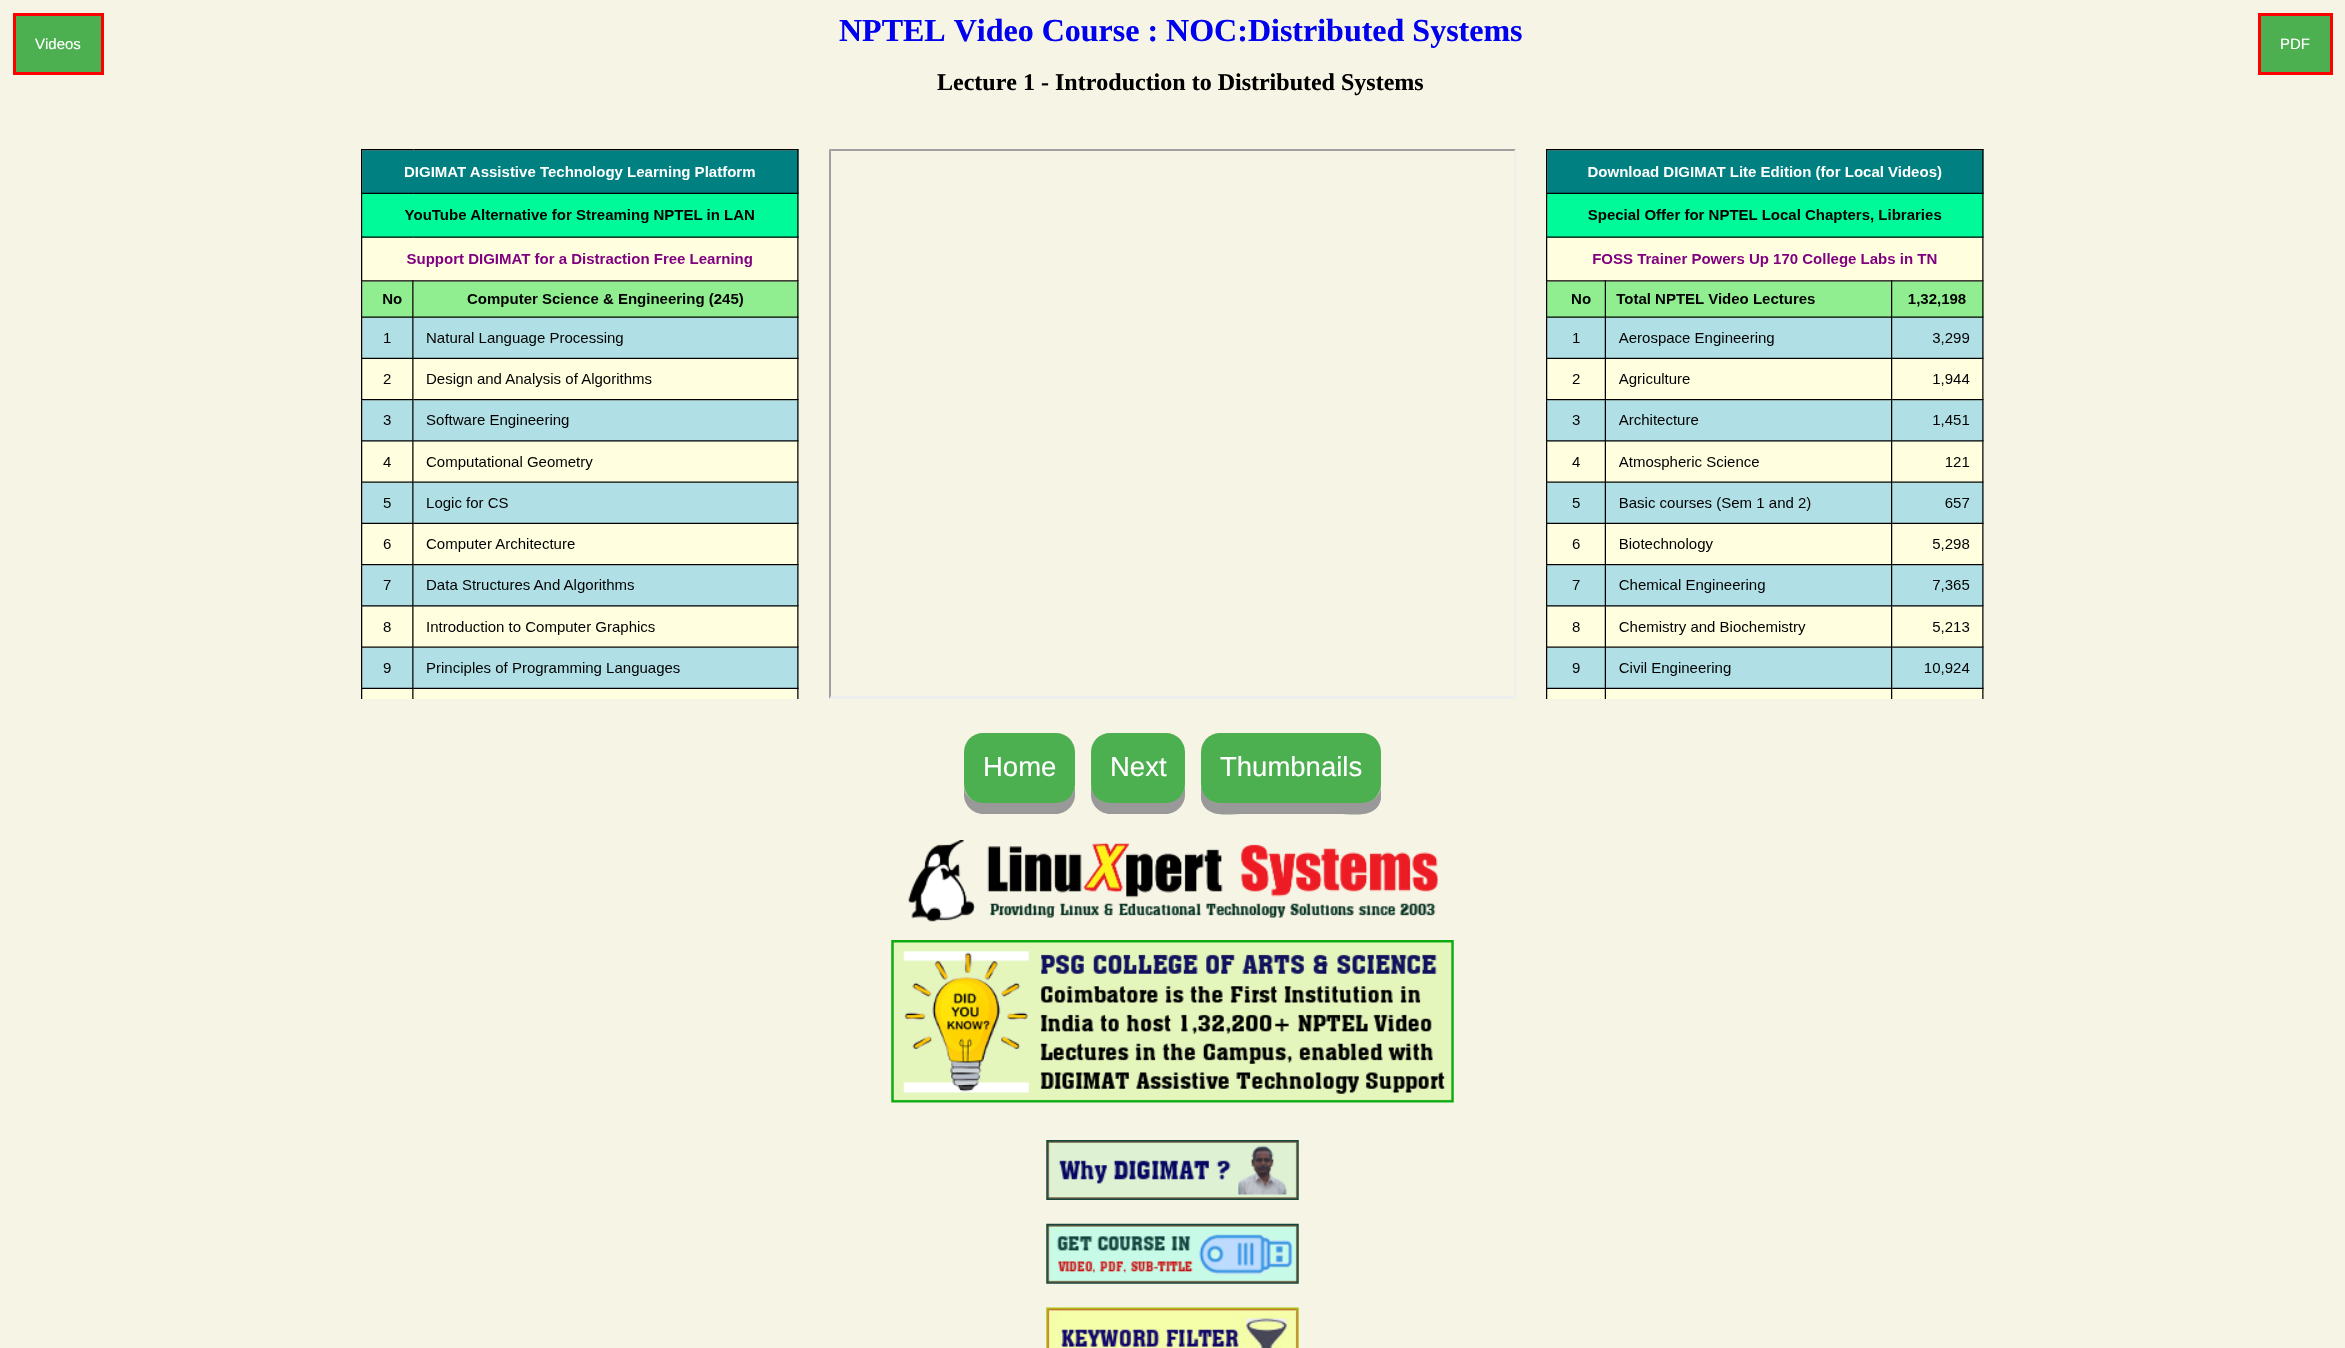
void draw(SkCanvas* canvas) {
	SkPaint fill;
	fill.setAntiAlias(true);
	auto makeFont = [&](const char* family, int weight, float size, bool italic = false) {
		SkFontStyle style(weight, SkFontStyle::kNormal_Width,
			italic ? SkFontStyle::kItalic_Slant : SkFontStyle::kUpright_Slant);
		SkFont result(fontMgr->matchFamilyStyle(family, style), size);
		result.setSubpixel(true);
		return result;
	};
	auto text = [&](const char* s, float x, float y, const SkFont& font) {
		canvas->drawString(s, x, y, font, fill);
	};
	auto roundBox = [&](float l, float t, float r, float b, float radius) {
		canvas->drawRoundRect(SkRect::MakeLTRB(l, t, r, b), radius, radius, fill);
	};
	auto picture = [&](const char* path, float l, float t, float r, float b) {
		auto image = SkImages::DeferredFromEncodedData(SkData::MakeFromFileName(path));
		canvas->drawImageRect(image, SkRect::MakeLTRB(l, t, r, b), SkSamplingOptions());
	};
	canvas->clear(0xFFF6F4E5);
	fill.setColor(0xFF4CAF50);
	canvas->drawRect(SkRect::MakeLTRB(14.5f, 14.5f, 102.5f, 73.5f), fill);
	fill.setStyle(SkPaint::kStroke_Style);
	fill.setStrokeWidth(3);
	fill.setColor(0xFFFF0000);
	canvas->drawRect(SkRect::MakeLTRB(14.5f, 14.5f, 102.5f, 73.5f), fill);
	fill.setStyle(SkPaint::kFill_Style);
	fill.setColor(0xFF4CAF50);
	canvas->drawRect(SkRect::MakeLTRB(2259.5f, 14.5f, 2331.5f, 73.5f), fill);
	fill.setStyle(SkPaint::kStroke_Style);
	fill.setColor(0xFFFF0000);
	canvas->drawRect(SkRect::MakeLTRB(2259.5f, 14.5f, 2331.5f, 73.5f), fill);
	picture("image0.png", 361, 149, 799, 699);
	fill.setStyle(SkPaint::kFill_Style);
	fill.setColor(0xFF9F9F9F);
	canvas->drawPath(SkPathBuilder().moveTo(829, 149).lineTo(1516, 149).lineTo(1514, 151).lineTo(831, 151).close().detach(), fill);
	fill.setColor(0xFFEEEEEE);
	canvas->drawPath(SkPathBuilder().moveTo(1516, 149).lineTo(1516, 699).lineTo(1514, 696).lineTo(1514, 151).close().detach(), fill);
	canvas->drawPath(SkPathBuilder().moveTo(1516, 699).lineTo(829, 699).lineTo(831, 696).lineTo(1514, 696).close().detach(), fill);
	fill.setColor(0xFF9F9F9F);
	canvas->drawPath(SkPathBuilder().moveTo(829, 699).lineTo(829, 149).lineTo(831, 151).lineTo(831, 696).close().detach(), fill);
	picture("image1.png", 1546, 149, 1984, 699);
	fill.setColor(0xFF999999);
	canvas->drawPath(SkPathBuilder().moveTo(964, 787).lineTo(964, 795).cubicTo(964, 805, 973, 814, 983, 814).lineTo(1056, 814).cubicTo(1066, 814, 1075, 805, 1075, 795).lineTo(1075, 784).cubicTo(1075, 794, 1067, 802, 1056, 802).lineTo(982, 802).cubicTo(973, 802, 965, 796, 964, 787).close().detach(), fill);
	fill.setColor(0xFF4CAF50);
	roundBox(964, 733, 1075, 803, 19);
	fill.setColor(0xFF999999);
	canvas->drawPath(SkPathBuilder().moveTo(1091, 760).lineTo(1091, 795).cubicTo(1091, 805, 1100, 814, 1110, 814).lineTo(1166, 814).cubicTo(1176, 814, 1185, 805, 1185, 795).lineTo(1185, 784).cubicTo(1185, 794, 1177, 802, 1166, 802).lineTo(1110, 802).cubicTo(1100, 802, 1091, 794, 1091, 784).close().detach(), fill);
	fill.setColor(0xFF4CAF50);
	roundBox(1091, 733, 1185, 803, 19);
	fill.setColor(0xFF999999);
	canvas->drawPath(SkPathBuilder().moveTo(1201, 760).lineTo(1201, 799).cubicTo(1205, 819, 1229, 814, 1244, 814).lineTo(1338, 814).cubicTo(1353, 814, 1377, 819, 1381, 799).lineTo(1381, 787).cubicTo(1380, 796, 1372, 802, 1362, 802).lineTo(1220, 802).cubicTo(1210, 802, 1201, 794, 1201, 784).close().detach(), fill);
	fill.setColor(0xFF4CAF50);
	roundBox(1201, 733, 1381, 803, 19);
	picture("image2.png", 908, 840, 1438, 922);
	picture("image3.png", 891, 940, 1454, 1103);
	picture("image4.png", 1046, 1140, 1299, 1200);
	picture("image5.png", 1046, 1223, 1299, 1284);
	picture("image6.png", 1046, 1307, 1299, 1348);
	auto font1 = makeFont("Liberation Sans", 400, 15);
	fill.setColor(0xFFFFFFFF);
	text("Videos", 35, 49, font1);
	auto font2 = makeFont("Liberation Serif", 700, 32);
	fill.setColor(0xFF0000EE);
	text("NPTEL Video Course : NOC:Distributed Systems", 839, 41, font2);
	auto font3 = makeFont("Liberation Serif", 700, 24);
	fill.setColor(0xFF000000);
	text("Lecture 1 - Introduction to Distributed Systems", 937, 90, font3);
	fill.setColor(0xFFFFFFFF);
	text("PDF", 2280, 49, font1);
	auto font4 = makeFont("Liberation Sans", 400, 27.5f);
	text("Home", 983, 776, font4);
	text("Next", 1110, 776, font4);
	text("Thumbnails", 1220, 776, font4);
}
